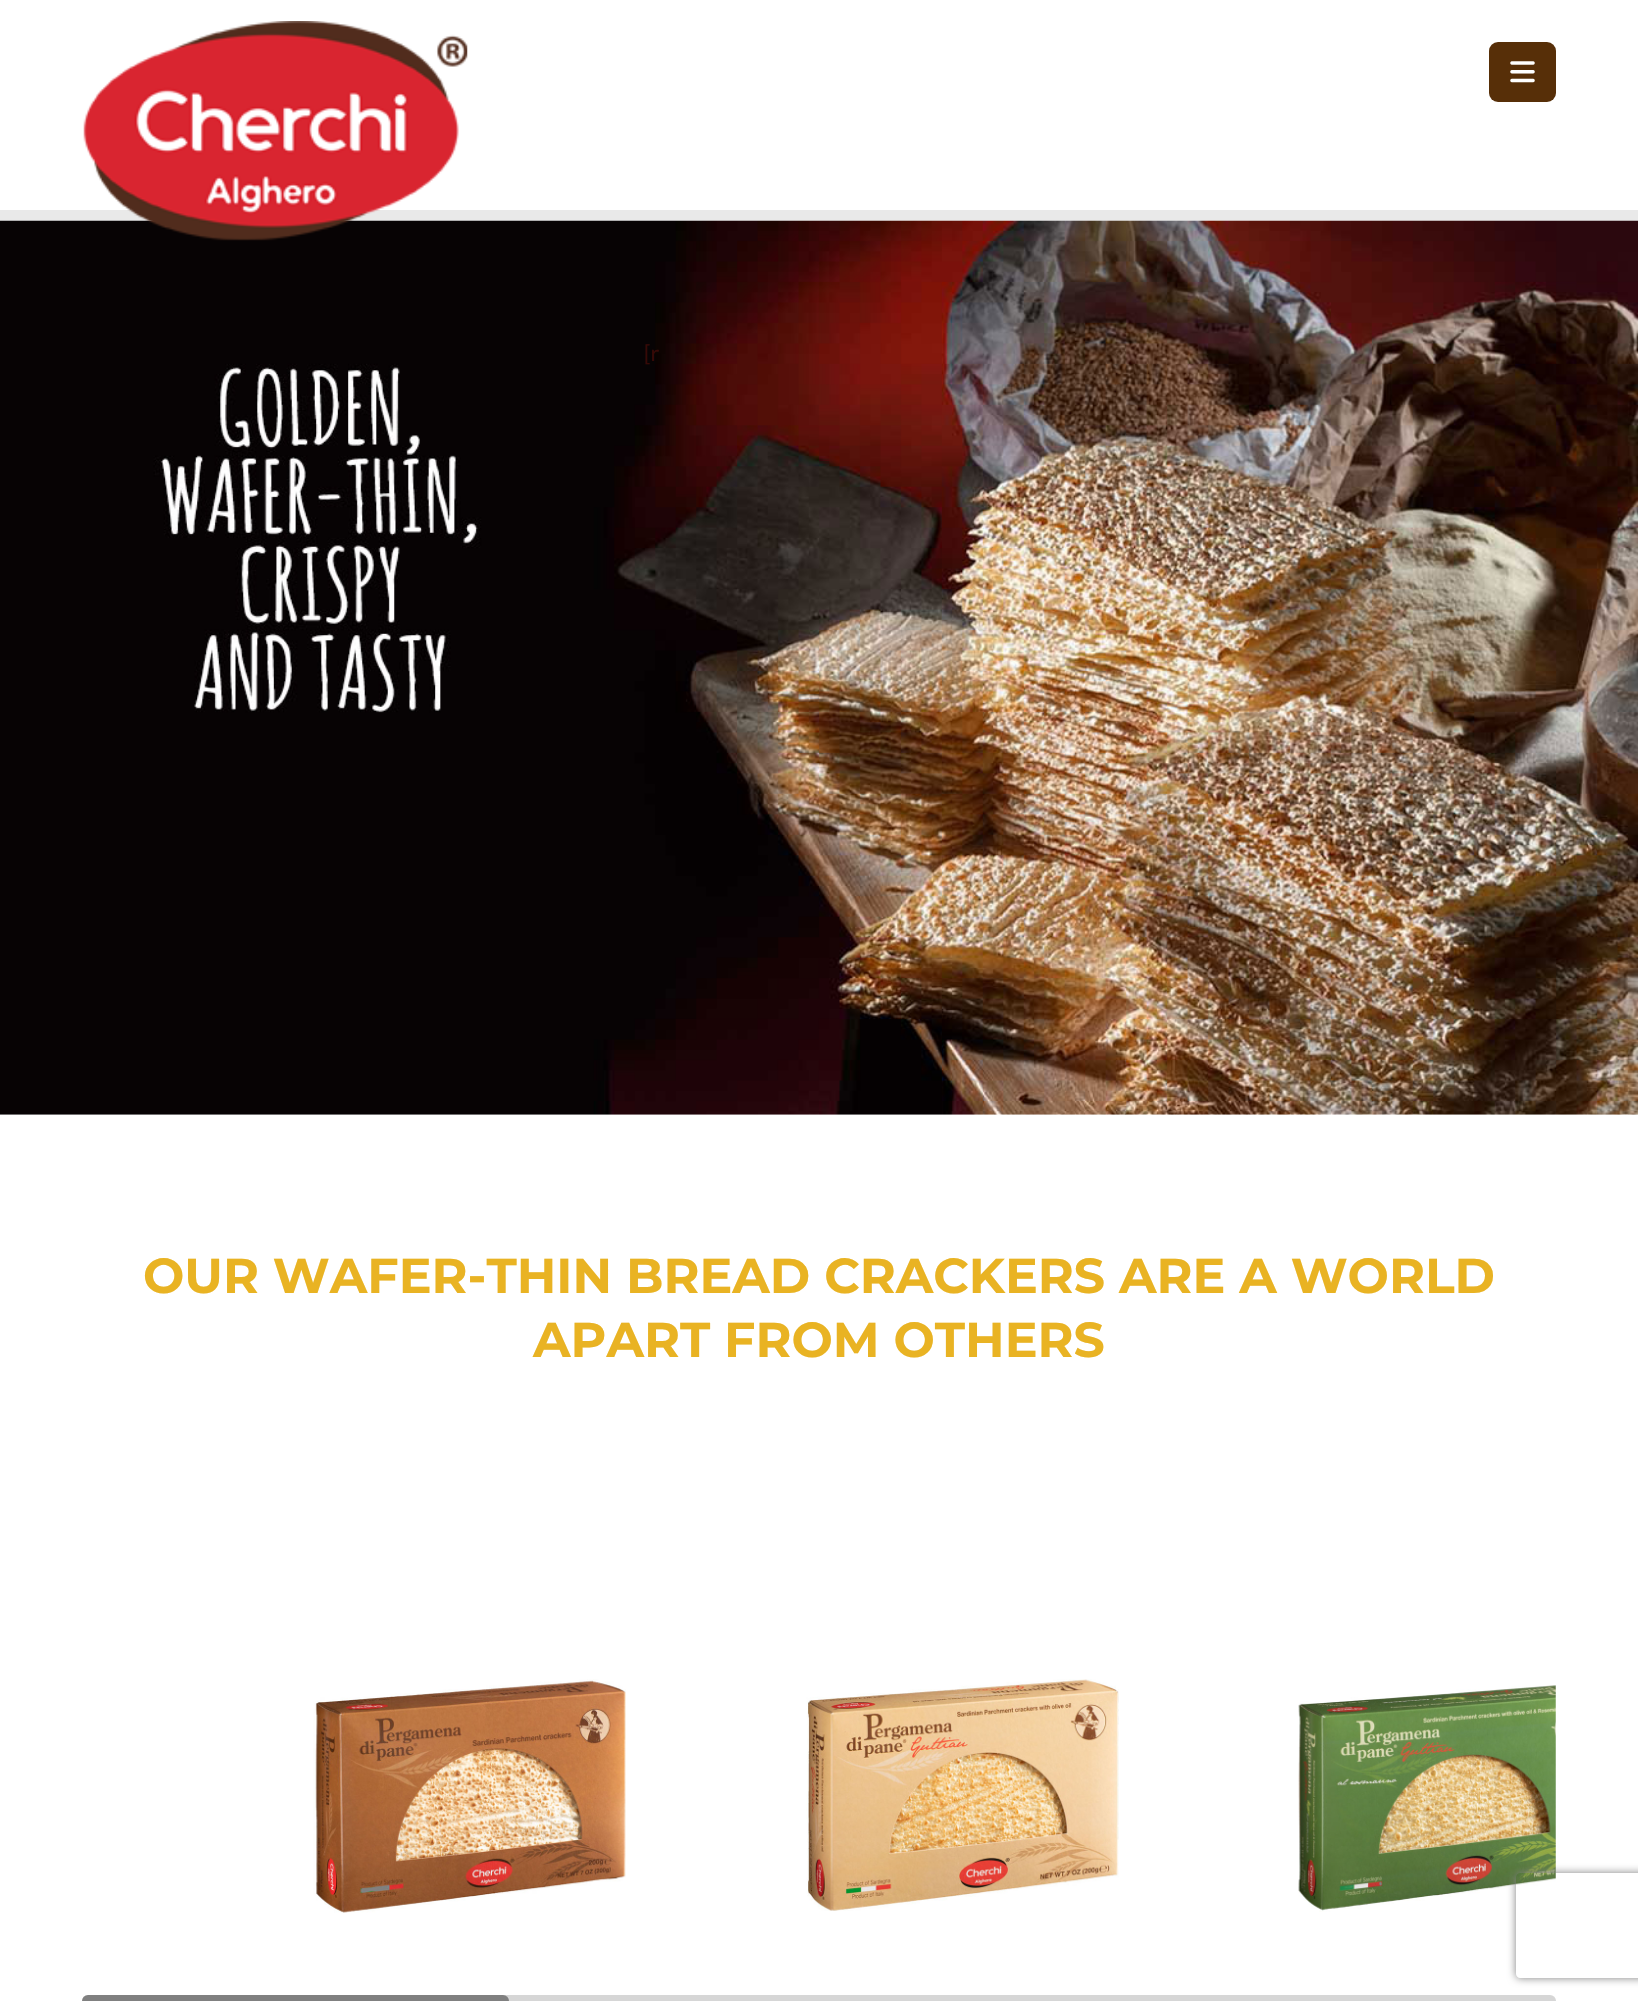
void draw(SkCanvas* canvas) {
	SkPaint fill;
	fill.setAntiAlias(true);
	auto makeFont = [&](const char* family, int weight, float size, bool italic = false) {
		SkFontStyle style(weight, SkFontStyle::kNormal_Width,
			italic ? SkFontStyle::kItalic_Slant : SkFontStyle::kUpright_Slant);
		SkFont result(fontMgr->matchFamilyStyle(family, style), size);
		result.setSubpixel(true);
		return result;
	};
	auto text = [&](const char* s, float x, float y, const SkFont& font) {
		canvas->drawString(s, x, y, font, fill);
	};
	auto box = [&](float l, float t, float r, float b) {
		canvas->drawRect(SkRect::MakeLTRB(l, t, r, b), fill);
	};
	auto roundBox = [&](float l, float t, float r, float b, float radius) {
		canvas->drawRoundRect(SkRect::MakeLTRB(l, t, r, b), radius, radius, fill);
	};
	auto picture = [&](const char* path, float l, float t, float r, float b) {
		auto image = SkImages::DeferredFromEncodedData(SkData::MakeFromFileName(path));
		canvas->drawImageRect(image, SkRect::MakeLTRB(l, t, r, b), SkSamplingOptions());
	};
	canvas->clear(0xFFFFFFFF);
	fill.setColor(0xFFE9E9E9);
	box(0, 210, 1638, 221);
	picture("image2.png", 0, 220, 1638, 1115);
	picture("image0.png", 83, 21, 468, 241);
	fill.setColor(0xFF572F08);
	roundBox(1489, 42, 1556, 102, 9);
	picture("image1.png", 1510, 61, 1535, 83);
	picture("image3.png", 313, 1679, 626, 1913);
	picture("image4.png", 806, 1679, 1119, 1911);
	picture("image5.png", 1298, 1685, 1556, 1912);
	fill.setColor(0xFFD6D6D6);
	roundBox(82, 1995, 1556, 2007, 6);
	fill.setColor(0x66000000);
	roundBox(82, 1995, 509, 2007, 6);
	canvas->save();
	canvas->clipPath(SkPathBuilder(SkPathFillType::kEvenOdd).moveTo(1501, 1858).lineTo(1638, 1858).lineTo(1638, 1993).lineTo(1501, 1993).close().moveTo(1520, 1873).lineTo(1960, 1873).cubicTo(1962, 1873, 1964, 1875, 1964, 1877).lineTo(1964, 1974).cubicTo(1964, 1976, 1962, 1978, 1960, 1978).lineTo(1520, 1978).cubicTo(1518, 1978, 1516, 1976, 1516, 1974).lineTo(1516, 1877).cubicTo(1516, 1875, 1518, 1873, 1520, 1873).close().detach(), true);
	fill.setColor(0xFF808080);
	fill.setMaskFilter(SkMaskFilter::MakeBlur(kNormal_SkBlurStyle, 4.5f));
	canvas->drawRoundRect(SkRect::MakeLTRB(1516, 1873, 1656, 1978), 4, 4, fill);
	fill.setMaskFilter(nullptr);
	canvas->restore();
	auto font1 = makeFont("Lato", 400, 22);
	fill.setColor(0xFF370906);
	text("[r", 644, 361, font1);
	auto font2 = makeFont("Montserrat", 700, 49);
	fill.setColor(0xFFE9B323);
	text("OUR WAFER-THIN BREAD CRACKERS ARE A WORLD", 143, 1293, font2);
	text("APART FROM OTHERS", 533, 1357, font2);
}
